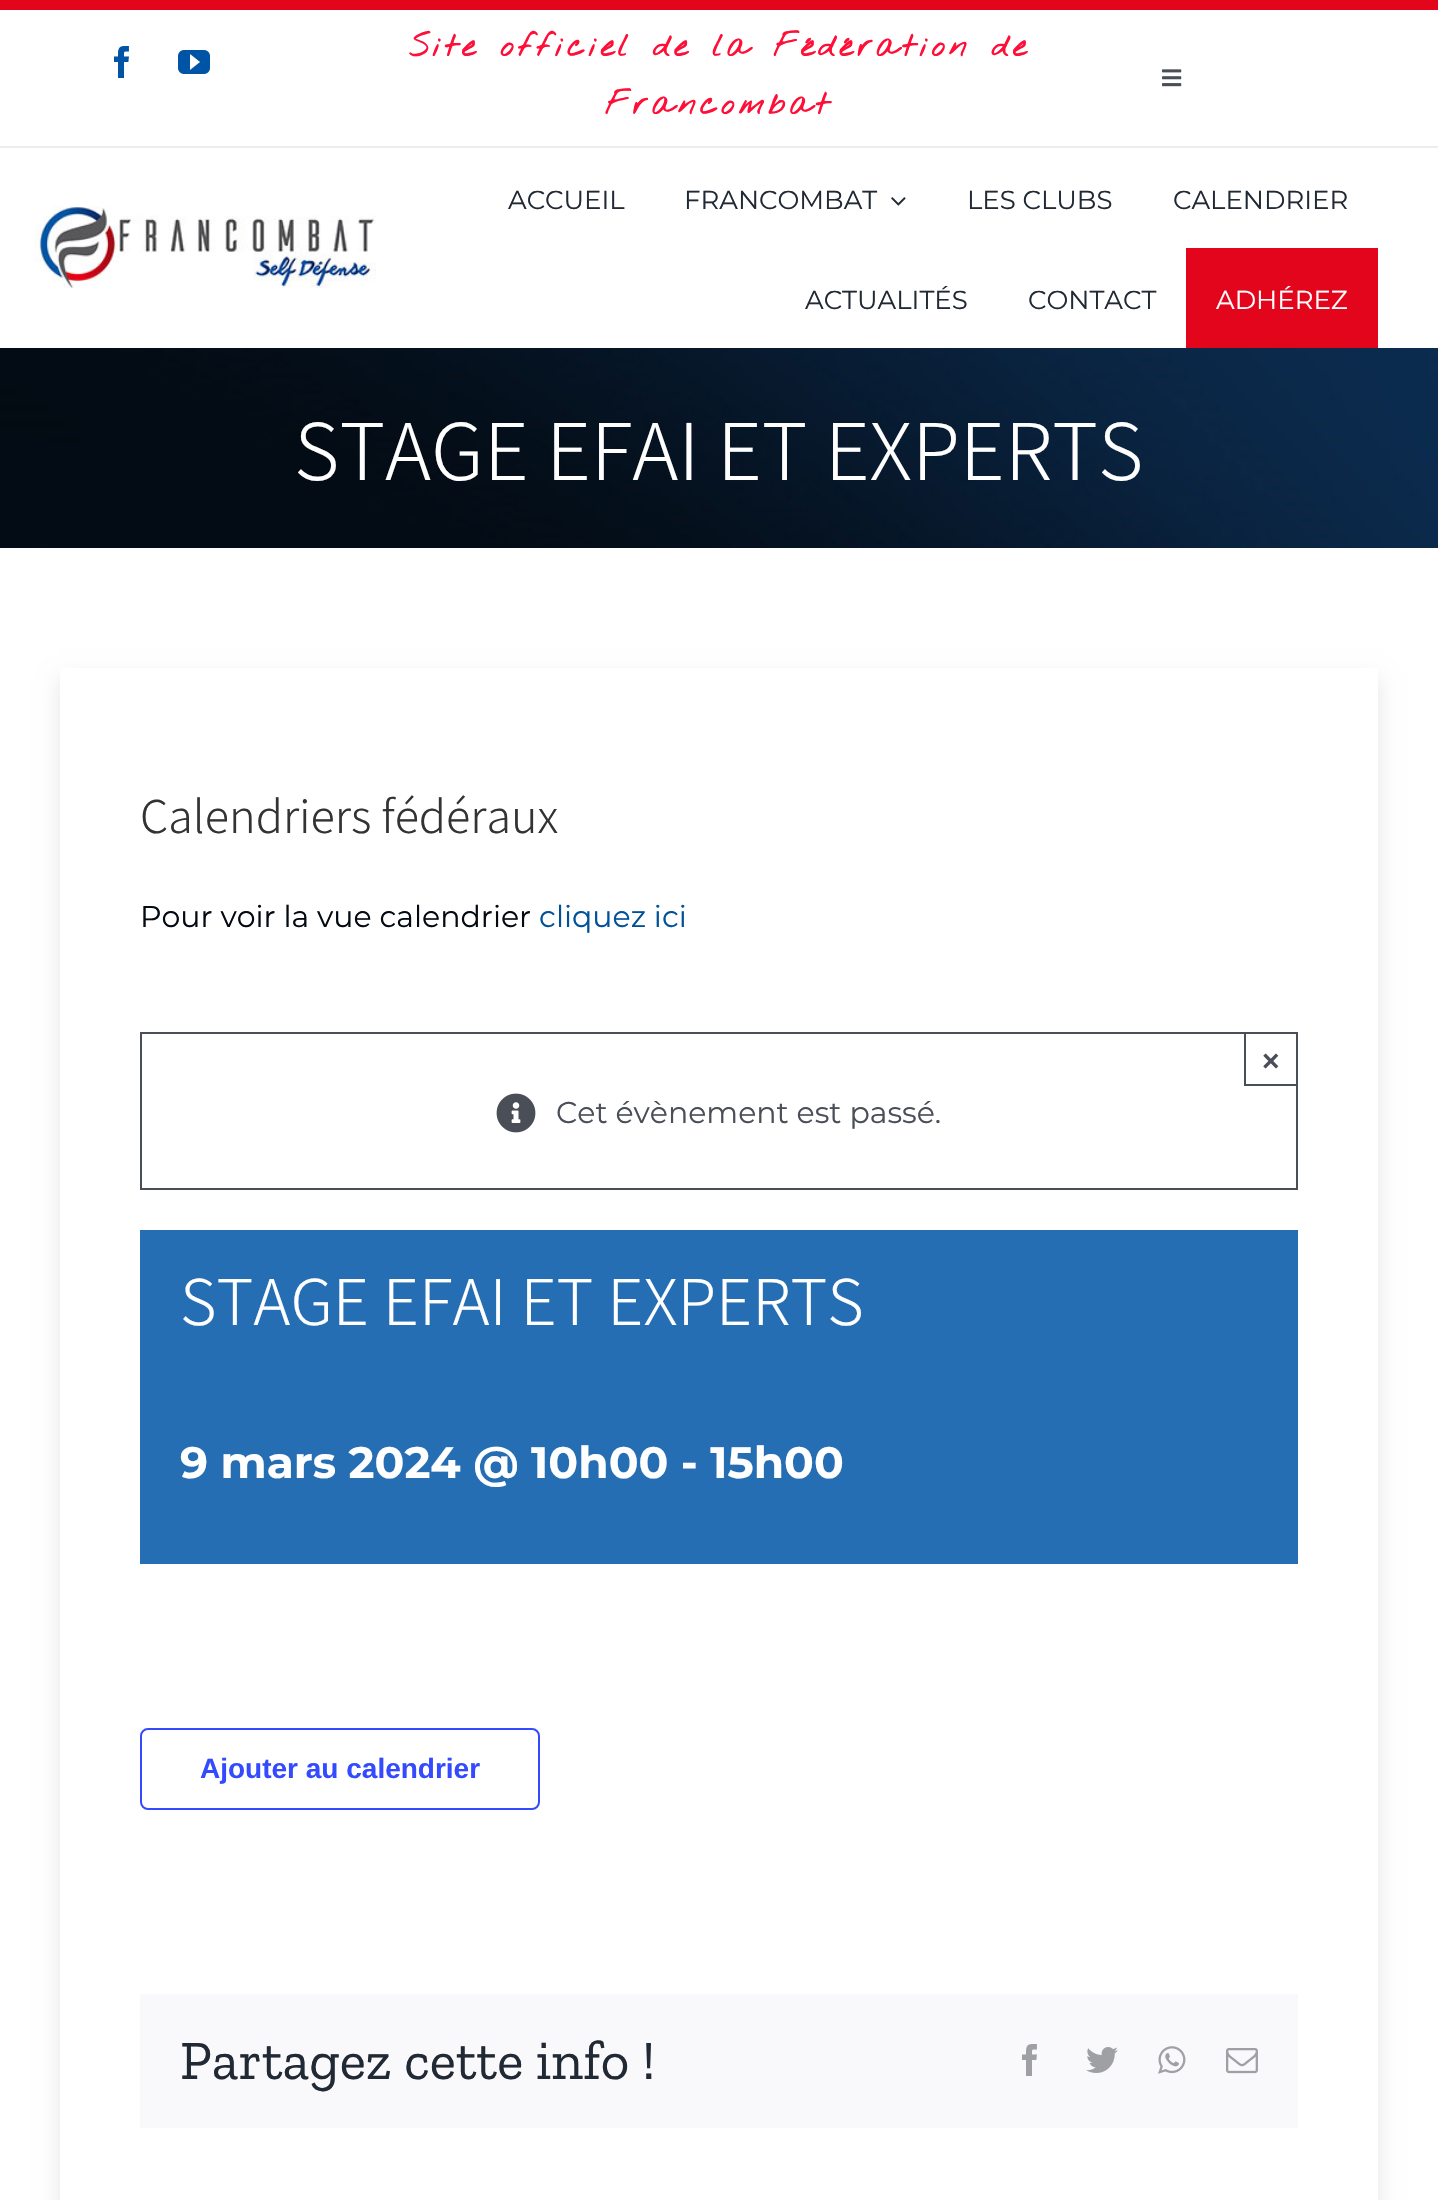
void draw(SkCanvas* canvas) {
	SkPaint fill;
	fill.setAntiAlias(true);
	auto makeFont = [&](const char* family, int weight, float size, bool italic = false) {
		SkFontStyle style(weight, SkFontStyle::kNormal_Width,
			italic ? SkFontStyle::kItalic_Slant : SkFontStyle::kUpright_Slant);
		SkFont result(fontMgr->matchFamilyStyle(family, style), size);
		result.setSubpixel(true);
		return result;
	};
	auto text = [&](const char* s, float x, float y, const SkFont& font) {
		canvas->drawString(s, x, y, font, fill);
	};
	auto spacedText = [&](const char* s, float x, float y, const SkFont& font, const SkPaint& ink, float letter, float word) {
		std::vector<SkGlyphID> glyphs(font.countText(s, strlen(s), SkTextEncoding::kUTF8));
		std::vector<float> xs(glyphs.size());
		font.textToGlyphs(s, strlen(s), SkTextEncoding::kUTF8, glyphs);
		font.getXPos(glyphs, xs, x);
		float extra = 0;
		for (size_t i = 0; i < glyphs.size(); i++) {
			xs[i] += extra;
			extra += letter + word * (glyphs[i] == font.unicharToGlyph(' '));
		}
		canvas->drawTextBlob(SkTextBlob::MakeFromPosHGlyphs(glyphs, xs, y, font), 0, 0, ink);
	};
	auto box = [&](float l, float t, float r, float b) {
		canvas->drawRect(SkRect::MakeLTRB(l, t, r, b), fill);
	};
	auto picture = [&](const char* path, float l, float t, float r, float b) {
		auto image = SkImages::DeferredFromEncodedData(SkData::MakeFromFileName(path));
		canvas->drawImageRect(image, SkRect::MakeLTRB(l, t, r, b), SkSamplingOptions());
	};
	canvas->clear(0xFFFFFFFF);
	fill.setColor(0xFFE3051C);
	box(0, 0, 1438, 10);
	picture("image0.png", 114, 46, 129, 78);
	picture("image1.png", 178, 50, 210, 74);
	picture("image2.png", 1162, 69, 1182, 87);
	fill.setColor(0xFFEDEDED);
	box(0, 146, 1438, 148);
	picture("image3.png", 34, 206, 376, 288);
	picture("image4.png", 891, 197, 906, 206);
	fill.setColor(0xFFE3051C);
	box(1186, 248, 1378, 348);
	picture("image5.png", 0, 348, 1438, 548);
	canvas->save();
	canvas->clipPath(SkPathBuilder(SkPathFillType::kEvenOdd).moveTo(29, 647).lineTo(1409, 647).lineTo(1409, 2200).lineTo(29, 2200).close().moveTo(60, 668).lineTo(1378, 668).lineTo(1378, 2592).lineTo(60, 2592).close().detach(), true);
	fill.setColor(0x1A000000);
	fill.setMaskFilter(SkMaskFilter::MakeBlur(kNormal_SkBlurStyle, 10));
	canvas->drawRect(SkRect::MakeLTRB(60, 678, 1378, 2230), fill);
	fill.setMaskFilter(nullptr);
	canvas->restore();
	fill.setStyle(SkPaint::kStroke_Style);
	fill.setStrokeWidth(2);
	fill.setColor(0xFF4A4E57);
	canvas->drawRect(SkRect::MakeLTRB(141, 1033, 1297, 1189), fill);
	canvas->drawRect(SkRect::MakeLTRB(1245, 1033, 1297, 1085), fill);
	picture("image6.png", 496, 1093, 536, 1133);
	fill.setStyle(SkPaint::kFill_Style);
	fill.setColor(0xFF266EB3);
	box(140, 1230, 1298, 1564);
	fill.setStyle(SkPaint::kStroke_Style);
	fill.setColor(0xFF334AFF);
	canvas->drawRoundRect(SkRect::MakeLTRB(141, 1729, 539, 1809), 7, 7, fill);
	fill.setStyle(SkPaint::kFill_Style);
	fill.setColor(0xFFF9F9FB);
	box(140, 1994, 1298, 2128);
	picture("image7.png", 1022, 2044, 1037, 2076);
	picture("image8.png", 1086, 2047, 1118, 2073);
	picture("image9.png", 1158, 2046, 1186, 2074);
	picture("image10.png", 1226, 2048, 1258, 2074);
	auto font1 = makeFont("Nothing You Could Do", 700, 32);
	fill.setColor(0xFFFF0E37);
	spacedText("Site officiel de la Fédération de", 409, 56, font1, fill, 4, 0);
	spacedText("Francombat", 605, 114, font1, fill, 4, 0);
	auto font2 = makeFont("Montserrat", 400, 26);
	fill.setColor(0xFF212934);
	text("ACCUEIL", 508, 209, font2);
	text("FRANCOMBAT", 684, 209, font2);
	text("LES CLUBS", 967, 209, font2);
	text("CALENDRIER", 1173, 209, font2);
	text("ACTUALITÉS", 805, 309, font2);
	text("CONTACT", 1028, 309, font2);
	fill.setColor(0xFFFFFFFF);
	text("ADHÉREZ", 1216, 309, font2);
	auto font3 = makeFont("Noto Sans JP", 300, 78.25f);
	text("STAGE EFAI ET EXPERTS", 294, 480, font3);
	auto font4 = makeFont("Noto Sans JP", 300, 45);
	fill.setColor(0xFF333333);
	text("Calendriers fédéraux", 140, 833, font4);
	auto font5 = makeFont("Montserrat", 400, 30);
	fill.setColor(0xFF030A12);
	text("Pour voir la vue calendrier", 140, 927, font5);
	fill.setColor(0xFF00519A);
	text("cliquez ici", 539, 927, font5);
	auto font6 = makeFont("Liberation Sans", 700, 30);
	fill.setColor(0xFF4A4E57);
	text("×", 1262, 1071, font6);
	text("Cet évènement est passé.", 556, 1123, font5);
	auto font7 = makeFont("Noto Sans JP", 300, 63);
	fill.setColor(0xFFFFFFFF);
	text("STAGE EFAI ET EXPERTS", 180, 1325, font7);
	auto font8 = makeFont("Montserrat", 700, 44);
	text("9 mars 2024 @ 10h00 - 15h00", 180, 1478, font8);
	auto font9 = makeFont("Liberation Sans", 700, 28);
	fill.setColor(0xFF334AFF);
	text("Ajouter au calendrier", 200, 1778, font9);
	auto font10 = makeFont("Zilla Slab", 400, 55.5f);
	fill.setColor(0xFF212934);
	text("Partagez cette info !", 180, 2079, font10);
}
